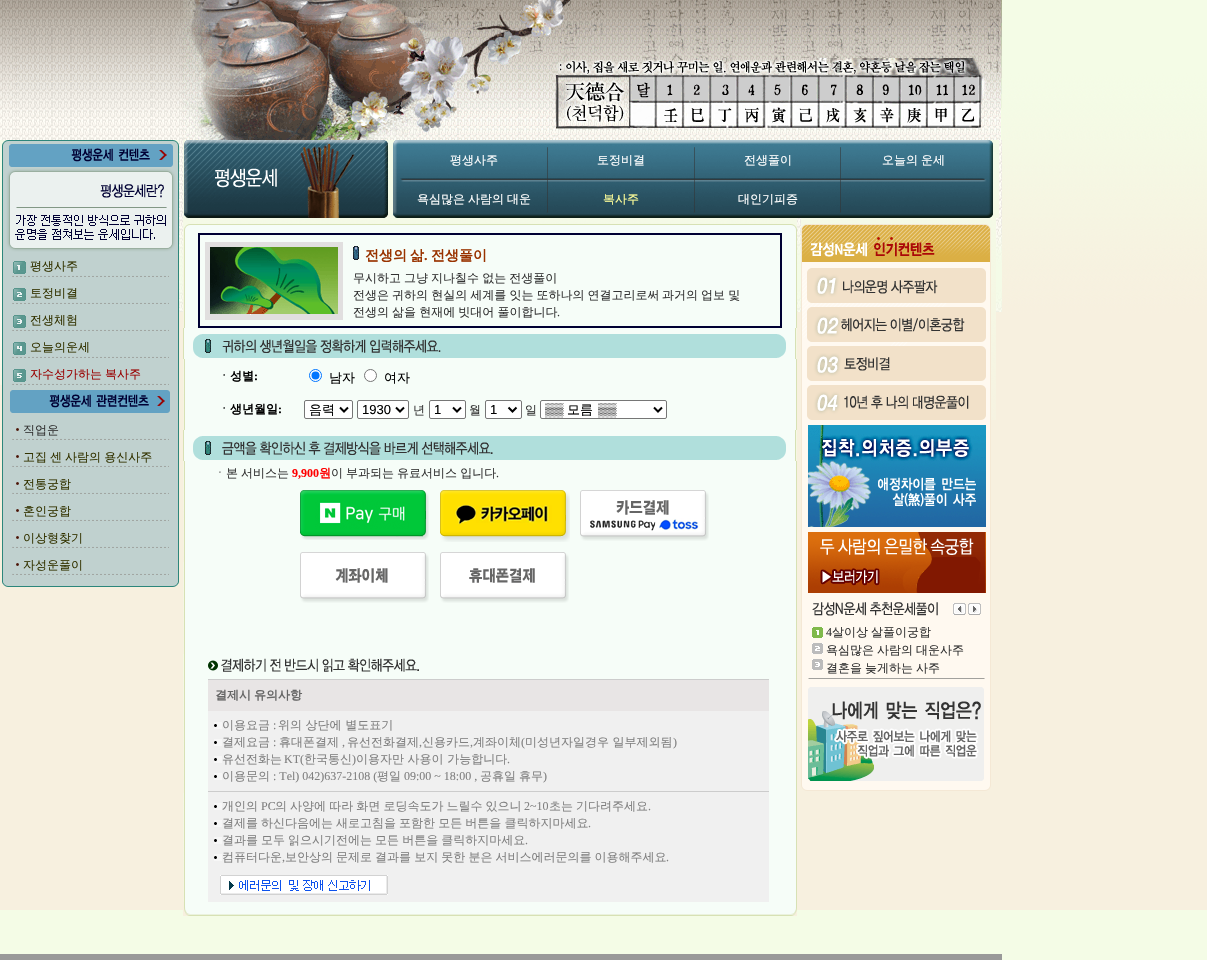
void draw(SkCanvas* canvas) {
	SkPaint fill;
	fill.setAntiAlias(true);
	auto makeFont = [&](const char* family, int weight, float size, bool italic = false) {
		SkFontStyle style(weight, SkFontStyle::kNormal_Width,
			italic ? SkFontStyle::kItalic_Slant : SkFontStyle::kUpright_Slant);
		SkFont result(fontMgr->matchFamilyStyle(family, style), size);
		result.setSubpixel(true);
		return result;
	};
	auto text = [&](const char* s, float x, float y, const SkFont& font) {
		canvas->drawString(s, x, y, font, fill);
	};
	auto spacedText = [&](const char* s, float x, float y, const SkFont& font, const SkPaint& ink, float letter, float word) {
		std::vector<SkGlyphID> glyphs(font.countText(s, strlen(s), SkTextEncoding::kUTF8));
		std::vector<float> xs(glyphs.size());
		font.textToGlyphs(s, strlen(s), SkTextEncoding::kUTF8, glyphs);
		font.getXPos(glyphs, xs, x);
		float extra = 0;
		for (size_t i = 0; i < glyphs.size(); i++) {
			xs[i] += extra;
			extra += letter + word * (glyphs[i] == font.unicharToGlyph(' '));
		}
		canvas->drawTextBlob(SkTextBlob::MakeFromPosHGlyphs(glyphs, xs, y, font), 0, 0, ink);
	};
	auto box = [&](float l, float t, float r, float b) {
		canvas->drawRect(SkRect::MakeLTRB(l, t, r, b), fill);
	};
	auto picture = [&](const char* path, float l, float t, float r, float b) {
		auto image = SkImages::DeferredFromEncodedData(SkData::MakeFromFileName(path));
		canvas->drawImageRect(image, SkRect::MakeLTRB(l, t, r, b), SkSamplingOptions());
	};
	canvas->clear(0xFFFFFFFF);
	picture("image0.png", 0, 0, 1207, 960);
	picture("image1.png", 0, 0, 1002, 312);
	picture("image2.png", 7, 0, 183, 23);
	picture("image3.png", 183, 0, 1002, 23);
	picture("image4.png", 7, 23, 183, 140);
	picture("image5.png", 183, 23, 1002, 140);
	picture("image6.png", 0, 140, 179, 169);
	picture("image7.png", 0, 169, 179, 250);
	picture("image8.png", 0, 250, 179, 277);
	picture("image9.png", 0, 277, 179, 304);
	picture("image10.png", 0, 304, 179, 331);
	picture("image11.png", 0, 331, 179, 358);
	picture("image12.png", 0, 358, 179, 385);
	picture("image13.png", 2, 385, 179, 413);
	picture("image14.png", 2, 413, 179, 579);
	picture("image15.png", 2, 579, 179, 587);
	picture("image16.png", 183, 140, 388, 218);
	picture("image17.png", 388, 140, 401, 218);
	picture("image18.png", 401, 140, 548, 180);
	picture("image19.png", 548, 140, 695, 180);
	picture("image20.png", 695, 140, 841, 180);
	picture("image21.png", 841, 140, 986, 180);
	picture("image22.png", 986, 140, 999, 218);
	picture("image23.png", 401, 180, 548, 218);
	picture("image24.png", 548, 180, 695, 218);
	picture("image25.png", 695, 180, 841, 218);
	picture("image26.png", 841, 180, 986, 218);
	picture("image27.png", 183, 218, 797, 233);
	picture("image28.png", 183, 233, 797, 328);
	fill.setStyle(SkPaint::kStroke_Style);
	fill.setStrokeWidth(1);
	fill.setColor(0xFF000033);
	canvas->drawRect(SkRect::MakeLTRB(198.5f, 233.5f, 781.5f, 327.5f), fill);
	canvas->drawRect(SkRect::MakeLTRB(199.5f, 234.5f, 780.5f, 326.5f), fill);
	picture("image29.png", 205, 242, 343, 320);
	picture("image30.png", 353, 246, 359, 260);
	picture("image31.png", 183, 359, 797, 654);
	picture("image32.png", 183, 328, 797, 359);
	fill.setStyle(SkPaint::kFill_Style);
	fill.setColor(0xFFFFFFFF);
	canvas->drawCircle(315.5f, 375.5f, 6, fill);
	fill.setStyle(SkPaint::kStroke_Style);
	fill.setColor(0xFF0075FF);
	canvas->drawCircle(315.5f, 375.5f, 6, fill);
	fill.setStyle(SkPaint::kFill_Style);
	canvas->drawCircle(315.5f, 375.5f, 4, fill);
	fill.setColor(0xFFFFFFFF);
	canvas->drawCircle(370.5f, 375.5f, 6, fill);
	fill.setStyle(SkPaint::kStroke_Style);
	fill.setColor(0xFF767676);
	canvas->drawCircle(370.5f, 375.5f, 6, fill);
	fill.setStyle(SkPaint::kFill_Style);
	fill.setColor(0xFFFFFFFF);
	canvas->drawRoundRect(SkRect::MakeLTRB(304.5f, 400.5f, 352.5f, 418.5f), 1.5f, 1.5f, fill);
	fill.setStyle(SkPaint::kStroke_Style);
	fill.setColor(0xFF767676);
	canvas->drawRoundRect(SkRect::MakeLTRB(304.5f, 400.5f, 352.5f, 418.5f), 1.5f, 1.5f, fill);
	fill.setStrokeWidth(2);
	fill.setColor(0xFF000000);
	canvas->drawPath(SkPathBuilder().moveTo(340, 407.5f).lineTo(344, 411.5f).lineTo(348, 407.5f).detach(), fill);
	fill.setStyle(SkPaint::kFill_Style);
	fill.setColor(0xFFFFFFFF);
	canvas->drawRoundRect(SkRect::MakeLTRB(357.5f, 400.5f, 408.5f, 418.5f), 1.5f, 1.5f, fill);
	fill.setStyle(SkPaint::kStroke_Style);
	fill.setStrokeWidth(1);
	fill.setColor(0xFF767676);
	canvas->drawRoundRect(SkRect::MakeLTRB(357.5f, 400.5f, 408.5f, 418.5f), 1.5f, 1.5f, fill);
	fill.setStrokeWidth(2);
	fill.setColor(0xFF000000);
	canvas->drawPath(SkPathBuilder().moveTo(396, 407.5f).lineTo(400, 411.5f).lineTo(404, 407.5f).detach(), fill);
	fill.setStyle(SkPaint::kFill_Style);
	fill.setColor(0xFFFFFFFF);
	canvas->drawRoundRect(SkRect::MakeLTRB(429.5f, 400.5f, 465.5f, 418.5f), 1.5f, 1.5f, fill);
	fill.setStyle(SkPaint::kStroke_Style);
	fill.setStrokeWidth(1);
	fill.setColor(0xFF767676);
	canvas->drawRoundRect(SkRect::MakeLTRB(429.5f, 400.5f, 465.5f, 418.5f), 1.5f, 1.5f, fill);
	fill.setStrokeWidth(2);
	fill.setColor(0xFF000000);
	canvas->drawPath(SkPathBuilder().moveTo(453, 407.5f).lineTo(457, 411.5f).lineTo(461, 407.5f).detach(), fill);
	fill.setStyle(SkPaint::kFill_Style);
	fill.setColor(0xFFFFFFFF);
	canvas->drawRoundRect(SkRect::MakeLTRB(485.5f, 400.5f, 521.5f, 418.5f), 1.5f, 1.5f, fill);
	fill.setStyle(SkPaint::kStroke_Style);
	fill.setStrokeWidth(1);
	fill.setColor(0xFF767676);
	canvas->drawRoundRect(SkRect::MakeLTRB(485.5f, 400.5f, 521.5f, 418.5f), 1.5f, 1.5f, fill);
	fill.setStrokeWidth(2);
	fill.setColor(0xFF000000);
	canvas->drawPath(SkPathBuilder().moveTo(508.5f, 407.5f).lineTo(512.5f, 411.5f).lineTo(516.5f, 407.5f).detach(), fill);
	fill.setStyle(SkPaint::kFill_Style);
	fill.setColor(0xFFFFFFFF);
	canvas->drawRoundRect(SkRect::MakeLTRB(540.5f, 400.5f, 666.5f, 418.5f), 1.5f, 1.5f, fill);
	fill.setStyle(SkPaint::kStroke_Style);
	fill.setStrokeWidth(1);
	fill.setColor(0xFF767676);
	canvas->drawRoundRect(SkRect::MakeLTRB(540.5f, 400.5f, 666.5f, 418.5f), 1.5f, 1.5f, fill);
	fill.setStrokeWidth(2);
	fill.setColor(0xFF000000);
	canvas->drawPath(SkPathBuilder().moveTo(654, 407.5f).lineTo(658, 411.5f).lineTo(662, 407.5f).detach(), fill);
	picture("image33.png", 183, 430, 797, 461);
	picture("image34.png", 300, 490, 429, 540);
	picture("image35.png", 440, 490, 570, 542);
	picture("image36.png", 580, 490, 709, 541);
	picture("image37.png", 300, 552, 429, 603);
	picture("image38.png", 440, 552, 569, 603);
	picture("image39.png", 183, 654, 797, 676);
	picture("image40.png", 183, 676, 797, 902);
	fill.setStyle(SkPaint::kFill_Style);
	fill.setColor(0xFFCCCCCC);
	box(208, 679, 769, 680);
	fill.setColor(0xFFE8E5E5);
	box(208, 680, 769, 711);
	fill.setColor(0xFFF0F0F0);
	box(208, 711, 769, 791);
	picture("image41.png", 214, 722, 222, 729);
	picture("image41.png", 214, 739, 222, 746);
	picture("image41.png", 214, 756, 222, 763);
	picture("image41.png", 214, 773, 222, 780);
	fill.setColor(0xFFCCCCCC);
	box(208, 791, 769, 792);
	fill.setColor(0xFFF0F0F0);
	box(208, 792, 769, 902);
	picture("image41.png", 214, 803, 222, 810);
	picture("image41.png", 214, 820, 222, 827);
	picture("image41.png", 214, 837, 222, 844);
	picture("image41.png", 214, 854, 222, 861);
	picture("image42.png", 220, 875, 388, 895);
	picture("image43.png", 183, 902, 797, 916);
	picture("image44.png", 801, 218, 996, 262);
	picture("image45.png", 801, 262, 996, 303);
	picture("image46.png", 801, 303, 996, 342);
	picture("image47.png", 801, 342, 996, 381);
	picture("image48.png", 801, 381, 996, 420);
	picture("image49.png", 801, 420, 991, 527);
	picture("image50.png", 801, 527, 991, 593);
	picture("image51.png", 801, 593, 991, 679);
	picture("image52.png", 801, 679, 991, 781);
	picture("image53.png", 801, 781, 991, 791);
	fill.setColor(0xFF999999);
	box(0, 954, 1002, 960);
	auto font1 = makeFont("WenQuanYi Zen Hei", 500, 12);
	fill.setColor(0xFF333300);
	text("평생사주", 30, 270, font1);
	text("토정비결", 30, 297, font1);
	text("전생체험", 30, 324, font1);
	text("오늘의운세", 30, 351, font1);
	fill.setColor(0xFF990000);
	text("자수성가하는", 30, 378, font1);
	text("복사주", 105, 378, font1);
	fill.setColor(0xFF333333);
	text("직업운", 23, 434, font1);
	fill.setColor(0xFF333300);
	text("고집", 23, 461, font1);
	spacedText("센 사람의 용신사주", 50, 461, font1, fill, 0, -0.5f);
	text("전통궁합", 23, 488, font1);
	text("혼인궁합", 23, 515, font1);
	text("이상형찾기", 23, 542, font1);
	text("자성운풀이", 23, 569, font1);
	fill.setColor(0xFFFFFFFF);
	text("평생사주", 450, 164, font1);
	text("토정비결", 597, 164, font1);
	text("전생풀이", 744, 164, font1);
	text("오늘의", 882, 164, font1);
	text("운세", 921, 164, font1);
	text("욕심많은", 417, 203, font1);
	spacedText("사람의 대운", 468, 203, font1, fill, 0, -0.5f);
	fill.setColor(0xFFFFFF99);
	text("복사주", 603, 203, font1);
	fill.setColor(0xFFFFFFFF);
	text("대인기피증", 738, 203, font1);
	auto font2 = makeFont("WenQuanYi Zen Hei", 700, 14);
	fill.setColor(0xFF993300);
	text("전생의", 365, 260, font2);
	text("삶", 410, 260, font2);
	auto font3 = makeFont("Liberation Serif", 700, 14);
	text(".", 424, 260, font3);
	text("전생풀이", 431, 260, font2);
	fill.setColor(0xFF333333);
	text("무시하고", 353, 282, font1);
	spacedText("그냥 지나칠수 없는 전생풀이", 404, 282, font1, fill, 0, -0.5f);
	spacedText("전생은 귀하의 현실의 세계를 잇는 또하나의 연결고리로써", 353, 299, font1, fill, 0, -0.5f);
	spacedText("과거의 업보 및", 662, 299, font1, fill, 0, -0.5f);
	spacedText("전생의 삶을 현재에 빗대어 풀이합니다", 353, 316, font1, fill, 0, -0.5f);
	auto font4 = makeFont("Liberation Serif", 400, 12);
	text(".", 557, 316, font4);
	auto font5 = makeFont("WenQuanYi Zen Hei", 700, 12);
	fill.setColor(0xFF000000);
	text("ㆍ성별", 218, 380, font5);
	auto font6 = makeFont("Liberation Serif", 700, 12);
	text(":", 254, 380, font6);
	auto font7 = makeFont("WenQuanYi Zen Hei", 500, 13);
	text("남자", 329, 382, font7);
	text("여자", 384, 382, font7);
	text("ㆍ생년월일", 218, 413, font5);
	text(":", 278, 413, font6);
	text("음력", 309, 414, font7);
	auto font8 = makeFont("Liberation Sans", 400, 13);
	text("1930", 362, 414, font8);
	fill.setColor(0xFF333333);
	text("년", 413, 414, font1);
	fill.setColor(0xFF000000);
	text("1", 434, 414, font8);
	fill.setColor(0xFF333333);
	text("월", 469, 414, font1);
	fill.setColor(0xFF000000);
	text("1", 490, 414, font8);
	fill.setColor(0xFF333333);
	text("일", 525, 414, font1);
	canvas->save();
	canvas->clipRect(SkRect::MakeLTRB(545, 401, 650, 418));
	fill.setColor(0xFF000000);
	text("▒▒", 545, 414, font8);
	canvas->restore();
	text("모름", 567, 414, font7);
	text("▒▒", 598, 414, font8);
	fill.setColor(0xFF333333);
	text("ㆍ본", 214, 477, font1);
	text("서비스는", 241, 477, font1);
	fill.setColor(0xFFFF0000);
	text("9,900", 292, 477, font6);
	text("원", 319, 477, font5);
	fill.setColor(0xFF333333);
	text("이", 331, 477, font1);
	spacedText("부과되는 유료서비스 입니다", 346, 477, font1, fill, 0, -0.5f);
	text(".", 496, 477, font4);
	fill.setColor(0xFF666666);
	text("결제시", 215, 699, font5);
	text("유의사항", 254, 699, font5);
	fill.setColor(0xFF808080);
	text("이용요금", 222, 729, font1);
	text(":", 273, 729, font4);
	text("위의 상단에 별도표기", 278, 729, font1);
	text("결제요금", 222, 746, font1);
	text(":", 273, 746, font4);
	text("휴대폰결제", 279, 746, font1);
	text(",", 342, 746, font4);
	text("유선전화결제", 347, 746, font1);
	text(",", 419, 746, font4);
	text("신용카드", 422, 746, font1);
	text(",", 470, 746, font4);
	text("계좌이체", 473, 746, font1);
	text("(", 521, 746, font4);
	text("미성년자일경우 일부제외됨", 525, 746, font1);
	text(")", 673, 746, font4);
	text("유선전화는", 222, 763, font1);
	text("KT(", 284, 763, font4);
	text("한국통신", 304, 763, font1);
	text(")", 352, 763, font4);
	text("이용자만 사용이 가능합니다", 356, 763, font1);
	text(".", 507, 763, font4);
	text("이용문의", 222, 780, font1);
	text(": Tel) 042)637-2108 (", 273, 780, font4);
	text("평일", 377, 780, font1);
	text("09:00 ~ 18:00 ,", 404, 780, font4);
	text("공휴일", 480, 780, font1);
	text("휴무", 519, 780, font1);
	text(")", 543, 780, font4);
	text("개인의", 222, 810, font1);
	text("PC", 261, 810, font4);
	spacedText("의 사양에 따라 화면 로딩속도가 느릴수 있으니", 275, 810, font1, fill, 0, -0.5f);
	text("2~10", 524, 810, font4);
	spacedText("초는 기다려주세요", 549, 810, font1, fill, 0, -0.5f);
	text(".", 648, 810, font4);
	spacedText("결제를 하신다음에는", 222, 827, font1, fill, 0, -0.5f);
	spacedText("새로고침을 포함한 모든 버튼을 클릭하지마세요", 336, 827, font1, fill, 0, -0.5f);
	text(".", 588, 827, font4);
	spacedText("결과를 모두", 222, 844, font1, fill, 0, -0.5f);
	spacedText("읽으시기전에는 모든 버튼을 클릭하지마세요", 288, 844, font1, fill, 0, -0.5f);
	text(".", 525, 844, font4);
	text("컴퓨터다운", 222, 861, font1);
	text(",", 282, 861, font4);
	text("보안상의", 285, 861, font1);
	spacedText("문제로 결과를 보지 못한 분은 서비스에러문의를 이용해주세요", 336, 861, font1, fill, 0, -0.5f);
	text(".", 666, 861, font4);
	fill.setColor(0xFF333333);
	text("4", 826, 636, font4);
	text("살이상", 832, 636, font1);
	text("살풀이궁합", 871, 636, font1);
	text("욕심많은", 826, 654, font1);
	spacedText("사람의 대운사주", 877, 654, font1, fill, 0, -0.5f);
	text("결혼을", 826, 672, font1);
	spacedText("늦게하는 사주", 865, 672, font1, fill, 0, -0.5f);
}
